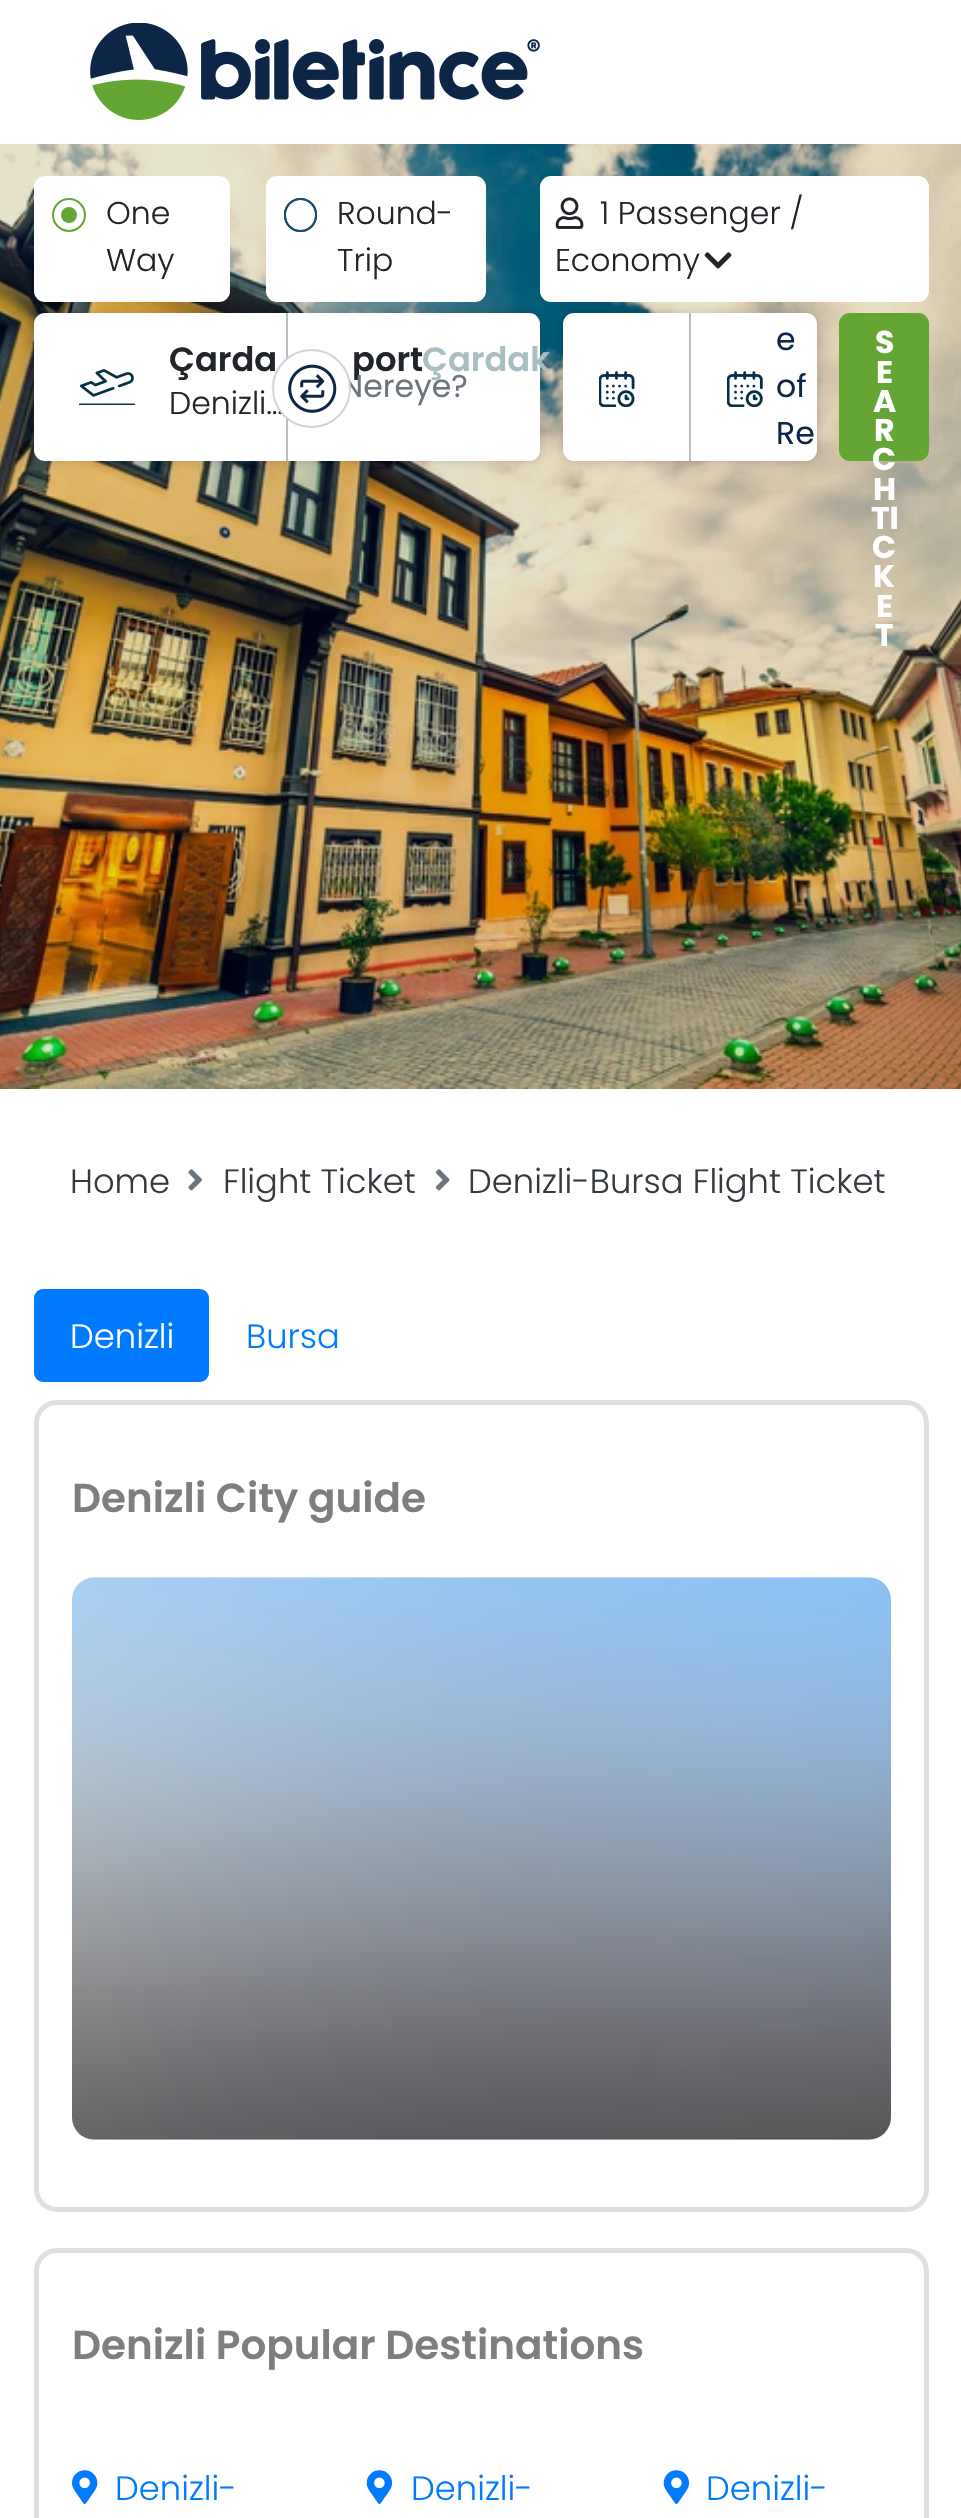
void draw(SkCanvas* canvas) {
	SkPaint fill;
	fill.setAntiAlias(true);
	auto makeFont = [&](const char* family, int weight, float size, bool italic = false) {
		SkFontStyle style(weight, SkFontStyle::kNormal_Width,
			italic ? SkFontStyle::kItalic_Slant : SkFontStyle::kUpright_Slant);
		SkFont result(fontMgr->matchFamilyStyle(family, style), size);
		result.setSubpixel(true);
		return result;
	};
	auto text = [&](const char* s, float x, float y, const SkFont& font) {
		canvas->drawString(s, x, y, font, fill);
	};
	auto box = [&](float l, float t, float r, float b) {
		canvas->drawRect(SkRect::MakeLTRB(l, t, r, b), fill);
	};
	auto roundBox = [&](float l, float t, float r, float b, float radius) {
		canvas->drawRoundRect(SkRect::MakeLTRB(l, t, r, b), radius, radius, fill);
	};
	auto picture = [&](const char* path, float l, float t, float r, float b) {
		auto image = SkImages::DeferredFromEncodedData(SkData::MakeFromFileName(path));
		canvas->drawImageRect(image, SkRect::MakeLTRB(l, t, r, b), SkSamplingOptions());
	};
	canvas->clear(0xFFFFFFFF);
	picture("image0.png", 90, 23, 540, 120);
	picture("image1.png", 0, 144, 961, 1089);
	fill.setColor(0xFFFFFFFF);
	roundBox(34, 176, 230, 302, 11);
	fill.setStyle(SkPaint::kStroke_Style);
	fill.setStrokeWidth(2);
	fill.setColor(0xFF63A634);
	canvas->drawCircle(69, 215, 16, fill);
	fill.setStyle(SkPaint::kFill_Style);
	canvas->drawCircle(69, 215, 7, fill);
	fill.setStyle(SkPaint::kStroke_Style);
	canvas->drawCircle(69, 215, 7, fill);
	fill.setStyle(SkPaint::kFill_Style);
	fill.setColor(0xFFFFFFFF);
	roundBox(266, 176, 486, 302, 11);
	fill.setStyle(SkPaint::kStroke_Style);
	fill.setColor(0xFF1B4D6E);
	canvas->drawRoundRect(SkRect::MakeLTRB(285, 199, 316, 231), 15.5f, 15.5f, fill);
	canvas->drawRoundRect(SkRect::MakeLTRB(285, 199, 316, 231), 15.5f, 15.5f, fill);
	fill.setStyle(SkPaint::kFill_Style);
	fill.setColor(0xFFFFFFFF);
	roundBox(540, 176, 929, 302, 11);
	picture("image2.png", 555, 197, 584, 229);
	picture("image3.png", 704, 252, 732, 269);
	fill.setColor(0x29000000);
	fill.setMaskFilter(SkMaskFilter::MakeBlur(kNormal_SkBlurStyle, 5.5f));
	canvas->drawRoundRect(SkRect::MakeLTRB(34, 313, 540, 461), 11, 11, fill);
	fill.setMaskFilter(nullptr);
	fill.setColor(0xFFFFFFFF);
	roundBox(34, 313, 540, 461, 11);
	fill.setColor(0xFFB6BEC8);
	box(286, 313, 288, 461);
	picture("image4.png", 79, 369, 135, 405);
	fill.setColor(0x29000000);
	fill.setMaskFilter(SkMaskFilter::MakeBlur(kNormal_SkBlurStyle, 5.5f));
	canvas->drawRoundRect(SkRect::MakeLTRB(563, 313, 817, 461), 11, 11, fill);
	fill.setMaskFilter(nullptr);
	fill.setColor(0xFFFFFFFF);
	roundBox(563, 313, 817, 461, 11);
	fill.setColor(0xFFB6BEC8);
	box(689, 313, 691, 461);
	picture("image6.png", 599, 371, 635, 407);
	picture("image7.png", 727, 371, 763, 407);
	fill.setColor(0xFF63A634);
	canvas->drawRoundRect(SkRect::MakeLTRB(840, 314, 928, 460), 10, 10, fill);
	fill.setStyle(SkPaint::kStroke_Style);
	canvas->drawRoundRect(SkRect::MakeLTRB(840, 314, 928, 460), 10, 10, fill);
	picture("image8.png", 188, 1169, 202, 1191);
	picture("image9.png", 435, 1169, 450, 1191);
	fill.setStyle(SkPaint::kFill_Style);
	fill.setColor(0xFF007BFF);
	roundBox(34, 1289, 209, 1382, 9);
	fill.setStyle(SkPaint::kStroke_Style);
	fill.setStrokeWidth(5);
	fill.setColor(0xFFDFDFDF);
	canvas->drawRoundRect(SkRect::MakeLTRB(36.5f, 1402.5f, 926.5f, 2209.5f), 20.5f, 20.5f, fill);
	picture("image10.png", 72, 1577, 891, 2140);
	canvas->drawRoundRect(SkRect::MakeLTRB(36.5f, 2250.5f, 926.5f, 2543.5f), 20.5f, 20.5f, fill);
	picture("image11.png", 72, 2470, 98, 2504);
	picture("image12.png", 366, 2470, 393, 2504);
	picture("image12.png", 663, 2470, 690, 2504);
	auto font1 = makeFont("Poppins", 300, 31.5f);
	fill.setStyle(SkPaint::kFill_Style);
	fill.setColor(0xFF212529);
	text("One", 106, 224, font1);
	text("Way", 106, 271, font1);
	text("Round-", 337, 224, font1);
	text("Trip", 337, 271, font1);
	text("1 Passenger /", 600, 224, font1);
	text("Economy", 555, 271, font1);
	auto font2 = makeFont("Poppins", 600, 33.75f);
	text("Çarda", 169, 371, font2);
	text("port", 352, 371, font2);
	text("Denizli…", 169, 414, font1);
	fill.setColor(0xFFA9BEC2);
	text("Çardak", 422, 371, font2);
	auto font3 = makeFont("Poppins", 400, 31.5f);
	fill.setColor(0xFF6C757D);
	text("Nereye?", 341, 397, font3);
	fill.setColor(0xFFFFFFFF);
	canvas->drawCircle(311.5f, 388.5f, 38.5f, fill);
	fill.setStyle(SkPaint::kStroke_Style);
	fill.setStrokeWidth(2);
	fill.setColor(0xFFCED4DA);
	canvas->drawCircle(311.5f, 388.5f, 38.5f, fill);
	picture("image5.png", 288, 364, 337, 413);
	fill.setStyle(SkPaint::kFill_Style);
	fill.setColor(0xFF0D2647);
	text("e", 776, 350, font3);
	text("of", 776, 397, font3);
	text("Re", 776, 444, font3);
	auto font4 = makeFont("Poppins", 700, 31.5f);
	fill.setColor(0xFFFFFFFF);
	text("S", 875, 353, font4);
	text("E", 876, 383, font4);
	text("A", 873, 412, font4);
	text("R", 874, 441, font4);
	text("C", 872, 470, font4);
	text("H", 873, 500, font4);
	text("TI", 871, 529, font4);
	text("C", 872, 558, font4);
	text("K", 873, 587, font4);
	text("E", 876, 617, font4);
	text("T", 875, 646, font4);
	auto font5 = makeFont("Poppins", 300, 33.75f);
	fill.setColor(0xFF343A40);
	text("Home", 70, 1193, font5);
	text("Flight Ticket", 223, 1193, font5);
	text("Denizli-Bursa Flight Ticket", 468, 1193, font5);
	fill.setColor(0xFFFFFFFF);
	text("Denizli", 70, 1348, font5);
	fill.setColor(0xFF007BFF);
	text("Bursa", 246, 1348, font5);
	auto font6 = makeFont("Poppins", 600, 40.5f);
	fill.setColor(0xFF7E7E7E);
	text("Denizli City guide", 72, 1512, font6);
	text("Denizli Popular Destinations", 72, 2359, font6);
	fill.setColor(0xFF007BFF);
	text("Denizli-", 115, 2500, font5);
	text("Denizli-", 411, 2500, font5);
	text("Denizli-", 706, 2500, font5);
}
